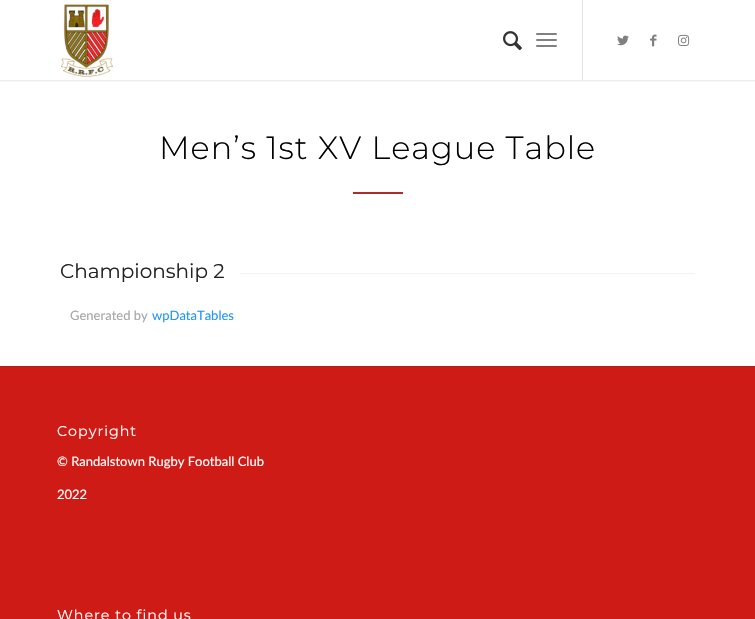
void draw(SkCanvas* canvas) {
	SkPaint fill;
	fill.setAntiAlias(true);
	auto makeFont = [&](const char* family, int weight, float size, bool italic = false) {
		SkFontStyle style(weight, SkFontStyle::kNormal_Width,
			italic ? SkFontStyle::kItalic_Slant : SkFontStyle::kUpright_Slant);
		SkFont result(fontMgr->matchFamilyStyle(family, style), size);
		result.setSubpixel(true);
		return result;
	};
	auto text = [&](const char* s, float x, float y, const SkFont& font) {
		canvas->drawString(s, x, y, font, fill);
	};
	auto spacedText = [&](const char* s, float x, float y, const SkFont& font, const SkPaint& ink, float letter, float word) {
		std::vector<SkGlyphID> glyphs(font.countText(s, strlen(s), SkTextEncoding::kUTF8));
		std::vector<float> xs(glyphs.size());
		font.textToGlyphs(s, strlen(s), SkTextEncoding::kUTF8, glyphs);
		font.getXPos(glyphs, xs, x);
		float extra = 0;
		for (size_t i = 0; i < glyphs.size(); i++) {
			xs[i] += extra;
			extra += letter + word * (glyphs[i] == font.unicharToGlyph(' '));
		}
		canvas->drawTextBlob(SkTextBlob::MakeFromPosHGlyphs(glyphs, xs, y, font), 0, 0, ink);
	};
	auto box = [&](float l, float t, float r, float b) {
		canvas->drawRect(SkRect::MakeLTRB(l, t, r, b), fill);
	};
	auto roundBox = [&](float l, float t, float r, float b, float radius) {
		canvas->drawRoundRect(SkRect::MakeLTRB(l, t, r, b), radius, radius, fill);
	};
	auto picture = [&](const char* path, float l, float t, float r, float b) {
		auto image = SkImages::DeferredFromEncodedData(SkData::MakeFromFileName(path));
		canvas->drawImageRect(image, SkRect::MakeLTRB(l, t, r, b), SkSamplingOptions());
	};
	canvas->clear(0xFFFFFFFF);
	canvas->save();
	canvas->clipRect(SkRect::MakeLTRB(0, 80, 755, 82));
	fill.setColor(0x1A000000);
	fill.setMaskFilter(SkMaskFilter::MakeBlur(kNormal_SkBlurStyle, 1));
	canvas->drawRect(SkRect::MakeLTRB(-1, -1, 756, 81), fill);
	fill.setMaskFilter(nullptr);
	canvas->restore();
	picture("image0.png", 61, 4, 113, 77);
	fill.setColor(0xFFE1E1E1);
	box(582, 0, 583, 80);
	picture("image1.png", 503, 31, 522, 51);
	fill.setColor(0xFF808080);
	roundBox(536, 39, 557, 41, 1);
	roundBox(536, 33, 557, 35, 1);
	roundBox(536, 45, 557, 47, 1);
	picture("image2.png", 617, 35, 629, 46);
	picture("image3.png", 650, 34, 657, 47);
	picture("image4.png", 678, 34, 690, 46);
	fill.setColor(0xFFB02B2C);
	box(353, 192, 403, 194);
	fill.setColor(0xFFF2F2F2);
	box(240, 273, 695, 274);
	fill.setColor(0xFFCF1B15);
	box(0, 367, 755, 619);
	fill.setColor(0xFFA6211F);
	box(0, 366, 755, 367);
	auto font1 = makeFont("Montserrat", 300, 32);
	fill.setColor(0xFF000000);
	spacedText("Men’s 1st XV League Table", 159, 159, font1, fill, 1, 0);
	auto font2 = makeFont("Montserrat", 400, 20);
	fill.setColor(0xFF222222);
	text("Championship 2", 60, 278, font2);
	auto font3 = makeFont("Lato", 400, 13);
	fill.setColor(0xFFA6A6A6);
	text("Generated by", 70, 320, font3);
	fill.setColor(0xFF2196F3);
	text("wpDataTables", 152, 320, font3);
	auto font4 = makeFont("Montserrat", 400, 14.25f);
	fill.setColor(0xFFFFFFFF);
	spacedText("Copyright", 57, 436, font4, fill, 1, 0);
	text("© Randalstown Rugby Football Club", 57, 466, font3);
	text("2022", 57, 499, font3);
	spacedText("Where to find us", 57, 620, font4, fill, 1, 0);
}
